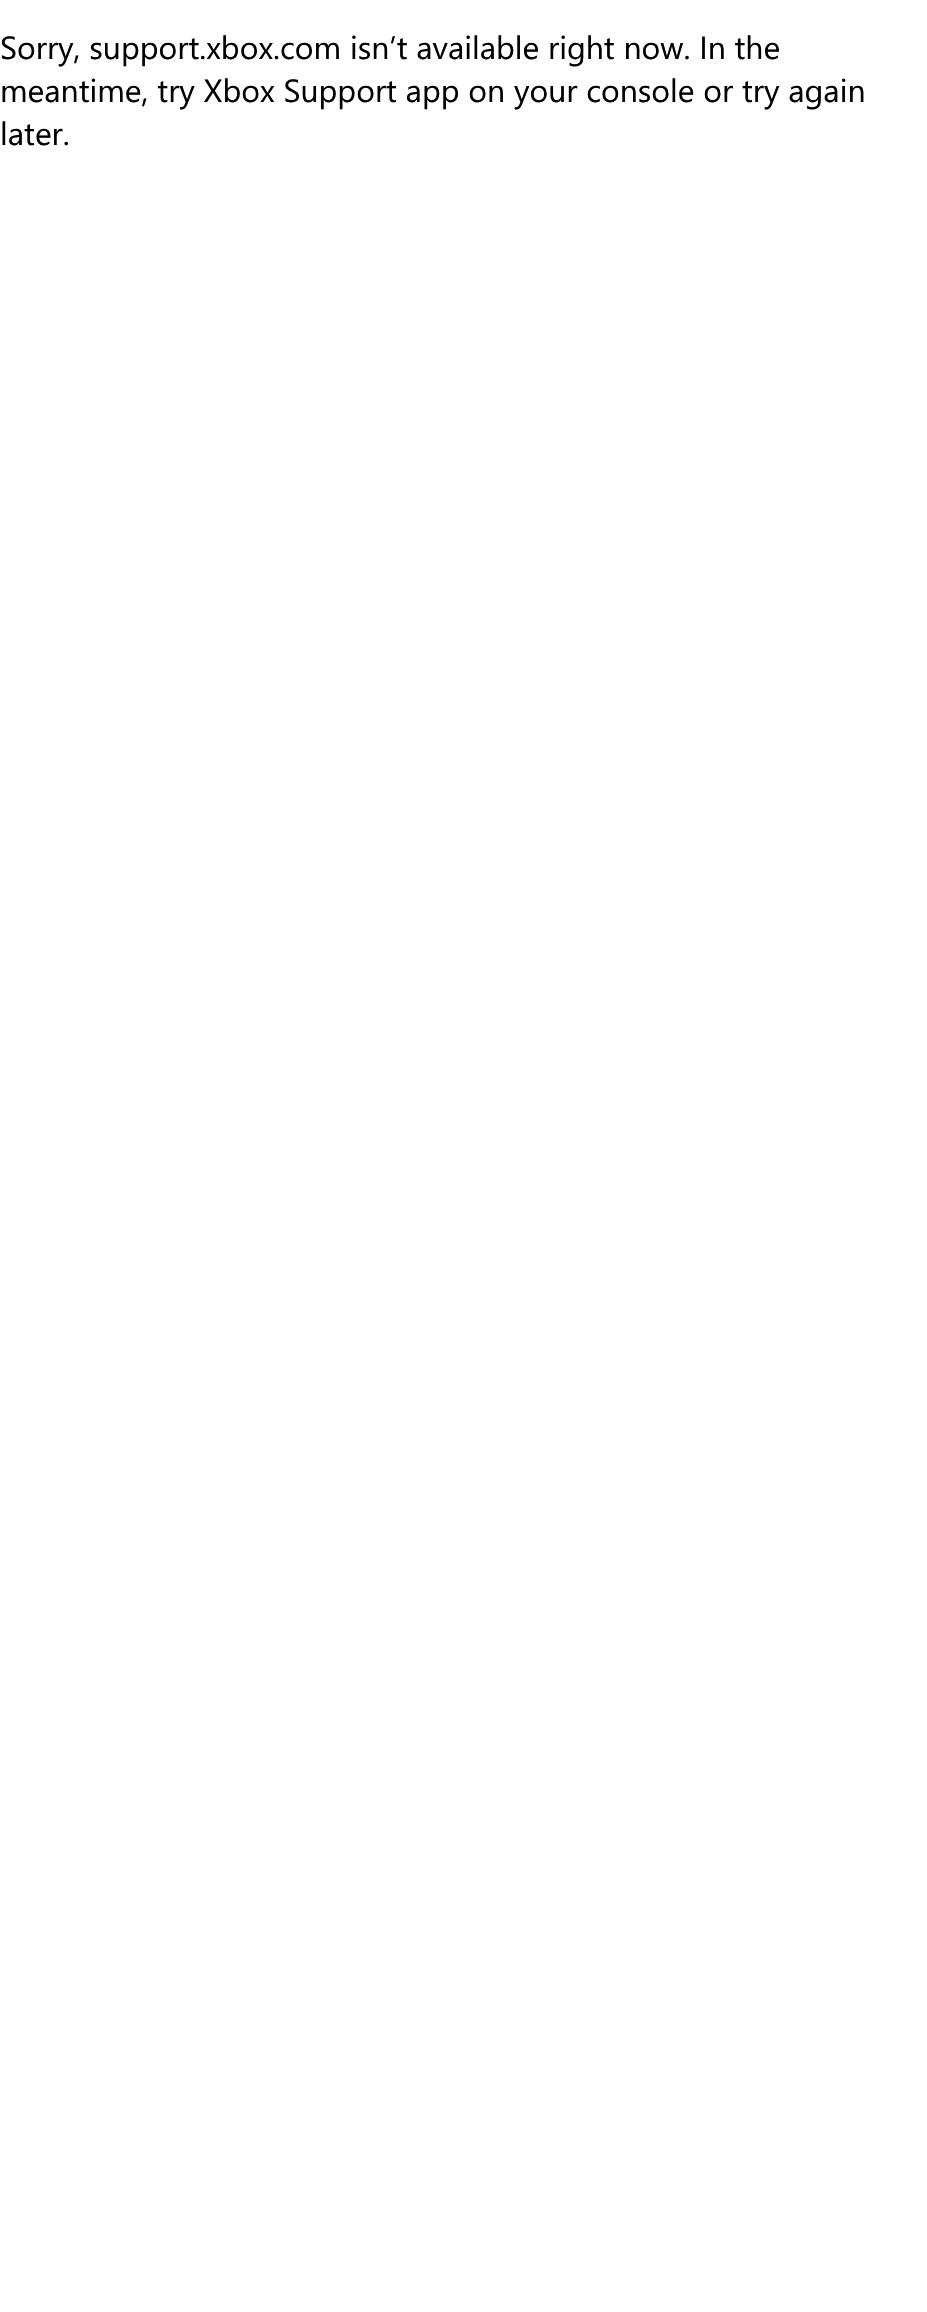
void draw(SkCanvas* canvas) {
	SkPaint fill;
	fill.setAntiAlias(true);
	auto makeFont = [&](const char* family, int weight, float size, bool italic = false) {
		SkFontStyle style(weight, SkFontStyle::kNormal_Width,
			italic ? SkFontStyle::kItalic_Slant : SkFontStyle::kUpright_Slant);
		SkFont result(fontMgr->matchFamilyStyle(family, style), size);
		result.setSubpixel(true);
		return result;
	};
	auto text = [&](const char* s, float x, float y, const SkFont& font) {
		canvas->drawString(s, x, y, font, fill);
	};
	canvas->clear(0xFFFFFFFF);
	auto font1 = makeFont("Segoe UI", 400, 32);
	fill.setColor(0xFF000000);
	text("Sorry, support.xbox.com isn’t available right now. In the", 0, 59, font1);
	text("meantime, try Xbox Support app on your console or try again", 0, 102, font1);
	text("later.", 0, 145, font1);
}
